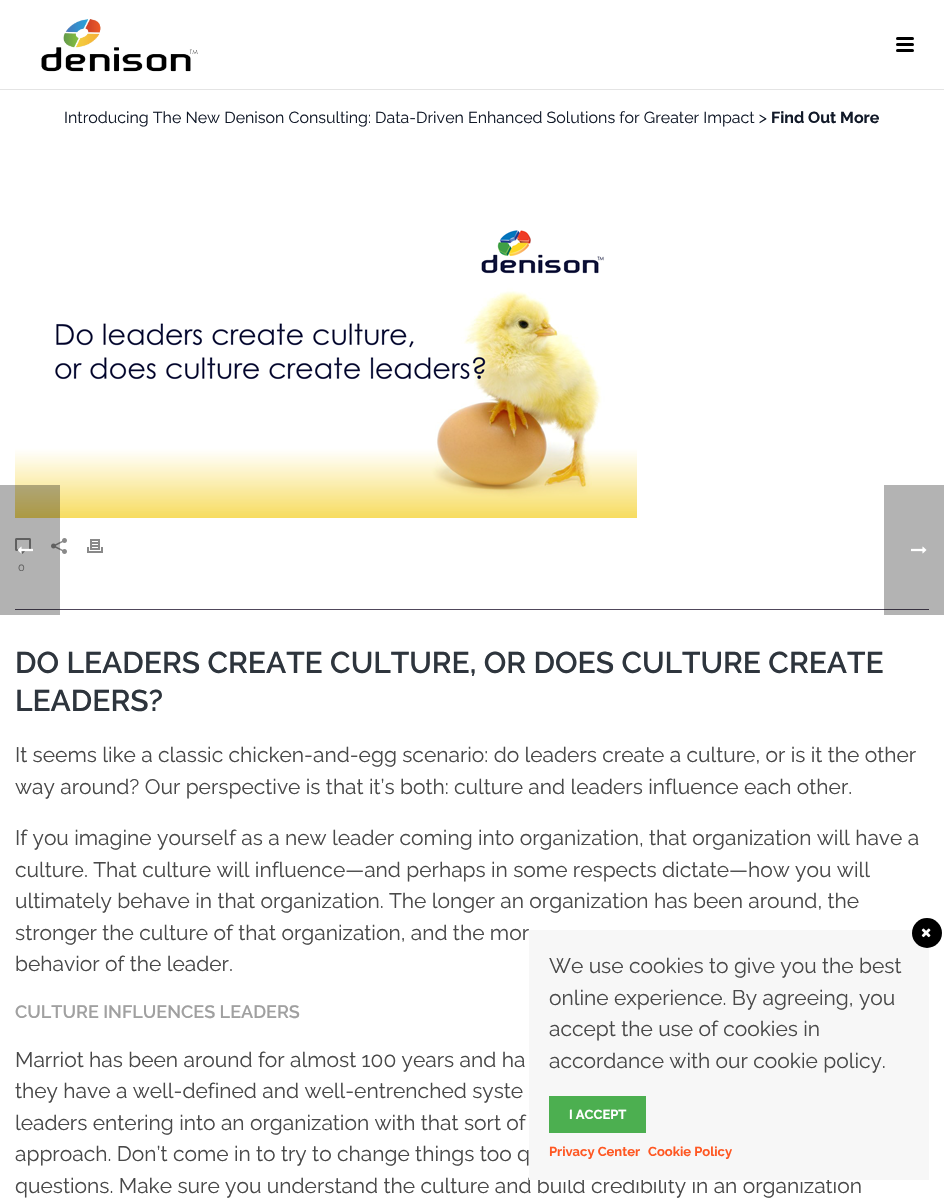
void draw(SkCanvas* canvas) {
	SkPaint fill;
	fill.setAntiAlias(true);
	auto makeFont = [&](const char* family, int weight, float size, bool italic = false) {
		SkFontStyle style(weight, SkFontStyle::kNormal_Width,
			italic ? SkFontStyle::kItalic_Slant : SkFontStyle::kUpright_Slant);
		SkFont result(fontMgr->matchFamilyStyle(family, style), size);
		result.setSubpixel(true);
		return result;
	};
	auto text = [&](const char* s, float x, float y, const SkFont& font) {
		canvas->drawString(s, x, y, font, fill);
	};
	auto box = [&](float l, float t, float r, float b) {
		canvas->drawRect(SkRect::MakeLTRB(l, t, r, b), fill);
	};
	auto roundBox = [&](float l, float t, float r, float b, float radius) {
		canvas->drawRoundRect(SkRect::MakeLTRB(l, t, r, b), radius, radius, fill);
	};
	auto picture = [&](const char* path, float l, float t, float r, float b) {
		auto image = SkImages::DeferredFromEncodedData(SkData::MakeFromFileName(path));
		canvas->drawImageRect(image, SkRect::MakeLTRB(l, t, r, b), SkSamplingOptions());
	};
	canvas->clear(0xFFFFFFFF);
	fill.setColor(0xFFB3B3B3);
	box(884, 485, 944, 615);
	fill.setColor(0xFFE4E4E4);
	box(0, 89, 944, 90);
	picture("image0.png", 41, 19, 198, 72);
	fill.setColor(0xFF000000);
	roundBox(896, 37, 914, 40, 1.5f);
	roundBox(896, 43, 914, 46, 1.5f);
	roundBox(896, 49, 914, 52, 1.5f);
	picture("image1.png", 15, 230, 637, 518);
	picture("image2.png", 51, 538, 67, 554);
	picture("image3.png", 87, 539, 103, 553);
	picture("image4.png", 15, 538, 31, 554);
	fill.setColor(0xFF50485B);
	box(15, 609, 884, 610);
	fill.setColor(0xFF383240);
	box(884, 609, 929, 610);
	picture("image6.png", 911, 546, 927, 554);
	auto font1 = makeFont("Raleway", 400, 16);
	fill.setColor(0xFF111928);
	text("Introducing The New Denison Consulting: Data-Driven Enhanced Solutions for Greater Impact >", 64, 123, font1);
	auto font2 = makeFont("Raleway", 700, 16);
	text("Find Out More", 771, 123, font2);
	auto font3 = makeFont("Raleway", 400, 11);
	fill.setColor(0xFF898989);
	text("0", 18, 571, font3);
	auto font4 = makeFont("Raleway", 600, 30);
	fill.setColor(0xFF2E353D);
	text("DO LEADERS CREATE CULTURE, OR DOES CULTURE CREATE", 15, 673, font4);
	text("LEADERS?", 15, 711, font4);
	auto font5 = makeFont("Raleway", 400, 21);
	fill.setColor(0xFF494949);
	text("It seems like a classic chicken-and-egg scenario: do leaders create a culture, or is it the other", 15, 762, font5);
	text("way around? Our perspective is that it’s both: culture and leaders influence each other.", 15, 794, font5);
	text("If you imagine yourself as a new leader coming into organization, that organization will have a", 15, 845, font5);
	text("culture. That culture will influence—and perhaps in some respects dictate—how you will", 15, 877, font5);
	text("ultimately behave in that organization. The longer an organization has been around, the", 15, 908, font5);
	text("stronger the culture of that organization, and the mor", 15, 940, font5);
	text("behavior of the leader.", 15, 971, font5);
	auto font6 = makeFont("Raleway", 600, 18);
	fill.setColor(0xFFA0A0A0);
	text("CULTURE INFLUENCES LEADERS", 15, 1018, font6);
	fill.setColor(0xFF494949);
	text("Marriot has been around for almost 100 years and ha", 15, 1067, font5);
	text("they have a well-defined and well-entrenched syste", 15, 1098, font5);
	text("leaders entering into an organization with that sort of", 15, 1130, font5);
	text("approach. Don’t come in to try to change things too q", 15, 1161, font5);
	text("questions. Make sure you understand the culture and build credibility in an organization", 15, 1193, font5);
	fill.setColor(0x4D000000);
	box(0, 485, 60, 615);
	picture("image5.png", 17, 546, 33, 554);
	fill.setColor(0xFFF7F7F7);
	box(529, 930, 929, 1180);
	fill.setColor(0xFF000000);
	canvas->drawCircle(927, 933, 15, fill);
	picture("image7.png", 921, 928, 931, 938);
	fill.setColor(0xFF494949);
	text("We use cookies to give you the best", 549, 973, font5);
	text("online experience. By agreeing, you", 549, 1005, font5);
	text("accept the use of cookies in", 549, 1036, font5);
	text("accordance with our cookie policy.", 549, 1068, font5);
	fill.setColor(0xFF4CAF50);
	box(549, 1096, 646, 1133);
	auto font7 = makeFont("Raleway", 700, 13);
	fill.setColor(0xFFFFFFFF);
	text("I ACCEPT", 569, 1119, font7);
	fill.setColor(0xFFFF5722);
	text("Privacy Center", 549, 1156, font7);
	text("Cookie Policy", 648, 1156, font7);
}
